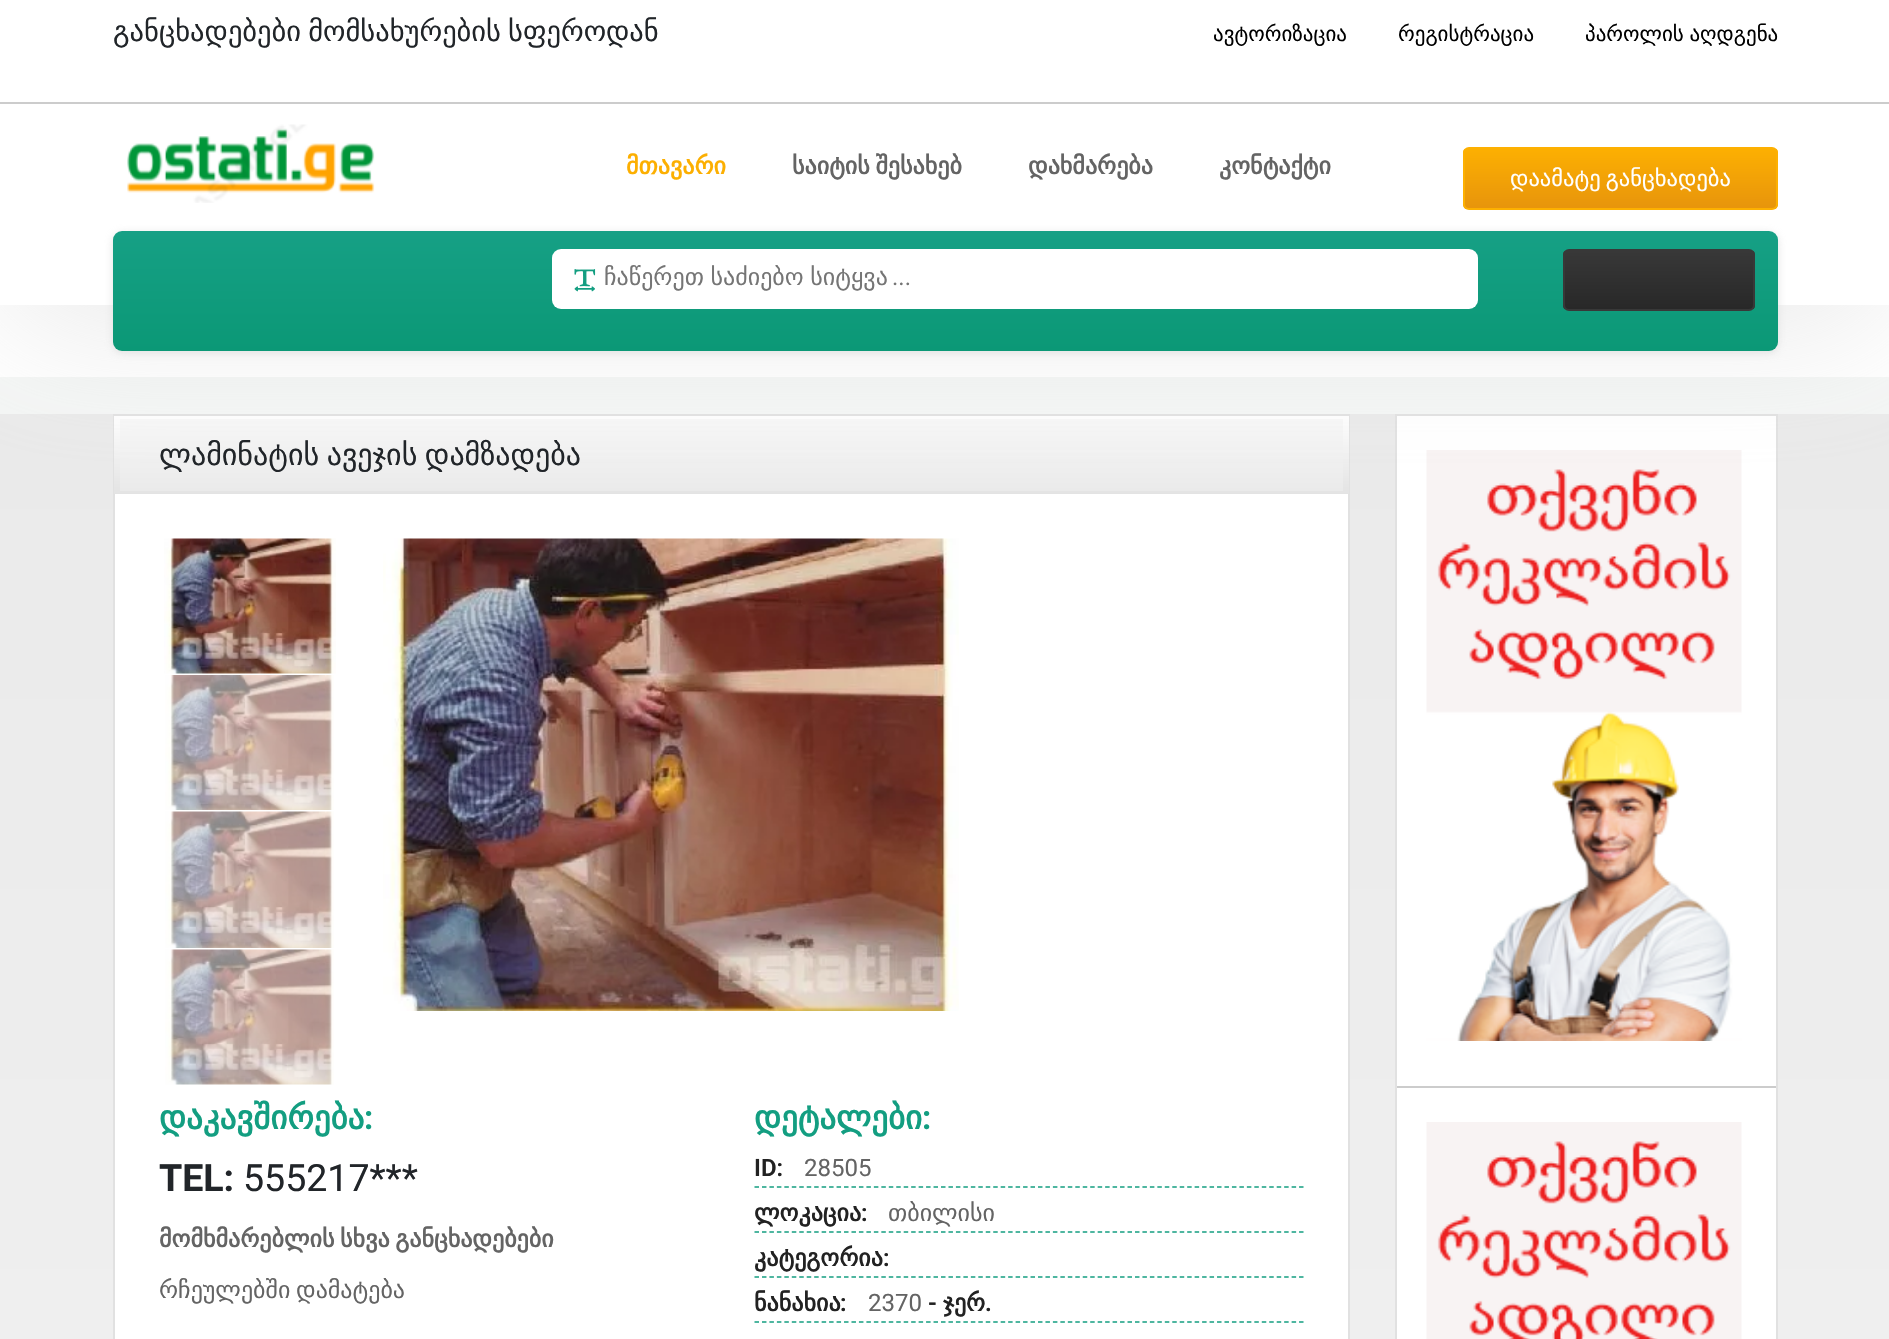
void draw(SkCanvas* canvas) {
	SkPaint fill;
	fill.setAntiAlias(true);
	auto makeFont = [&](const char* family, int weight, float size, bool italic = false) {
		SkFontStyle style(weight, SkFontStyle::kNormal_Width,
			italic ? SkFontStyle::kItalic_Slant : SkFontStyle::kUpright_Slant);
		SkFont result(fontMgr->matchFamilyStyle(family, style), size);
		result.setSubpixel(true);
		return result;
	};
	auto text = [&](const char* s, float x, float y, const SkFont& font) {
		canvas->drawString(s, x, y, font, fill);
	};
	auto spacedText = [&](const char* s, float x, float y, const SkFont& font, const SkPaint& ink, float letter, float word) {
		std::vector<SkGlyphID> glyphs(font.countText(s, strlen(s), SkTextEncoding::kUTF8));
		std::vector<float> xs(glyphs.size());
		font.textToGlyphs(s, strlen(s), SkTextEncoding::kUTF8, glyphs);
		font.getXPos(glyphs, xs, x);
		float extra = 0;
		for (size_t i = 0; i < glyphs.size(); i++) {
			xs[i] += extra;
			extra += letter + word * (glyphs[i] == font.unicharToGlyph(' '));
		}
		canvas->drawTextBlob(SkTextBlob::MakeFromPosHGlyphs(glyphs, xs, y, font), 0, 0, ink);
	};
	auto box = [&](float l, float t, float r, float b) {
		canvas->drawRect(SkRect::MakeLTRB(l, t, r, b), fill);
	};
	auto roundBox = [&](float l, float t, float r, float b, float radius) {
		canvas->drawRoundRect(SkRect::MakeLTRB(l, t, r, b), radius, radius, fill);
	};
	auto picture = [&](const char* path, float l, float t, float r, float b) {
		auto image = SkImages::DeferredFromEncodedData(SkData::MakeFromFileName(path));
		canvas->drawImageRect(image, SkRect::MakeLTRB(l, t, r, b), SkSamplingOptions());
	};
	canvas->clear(0xFFFFFFFF);
	fill.setColor(0xFFF4F6F5);
	box(0, 377, 1889, 414);
	{
		const SkColor colors[] = {0xFFEAEAEA, 0xFFF8F8F8};
		const float stops[] = {0, 1};
		const SkPoint ends[] = {{945, 414}, {945, 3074}};
		fill.setShader(SkGradientShader::MakeLinear(ends, colors, stops, 2, SkTileMode::kClamp));
		fill.setAlpha(255);
	}
	box(0, 414, 1889, 1339);
	fill.setShader(nullptr);
	fill.setColor(0xFFFFFFFF);
	box(115, 494, 1348, 1339);
	fill.setStyle(SkPaint::kStroke_Style);
	fill.setStrokeWidth(2);
	fill.setColor(0xFFE1E1E1);
	canvas->drawRect(SkRect::MakeLTRB(114, 415, 1349, 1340), fill);
	fill.setStyle(SkPaint::kFill_Style);
	{
		const SkColor colors[] = {0xFFFFFFFF, 0xFFE3E3E3};
		const float stops[] = {0, 1};
		const SkPoint ends[] = {{731, 415}, {731, 494}};
		fill.setShader(SkGradientShader::MakeLinear(ends, colors, stops, 2, SkTileMode::kClamp));
		fill.setAlpha(255);
	}
	box(114, 416, 1349, 494);
	{
		const SkColor colors[] = {0xFFF8F8F8, 0xFFEAEAEA};
		const float stops[] = {0, 1};
		const SkPoint ends[] = {{731, 418}, {731, 491}};
		fill.setShader(SkGradientShader::MakeLinear(ends, colors, stops, 2, SkTileMode::kClamp));
		fill.setAlpha(255);
	}
	box(120, 419, 1343, 491);
	picture("image2.png", 164, 538, 336, 674);
	picture("image6.png", 383, 538, 959, 1011);
	fill.setShader(nullptr);
	fill.setColor(0xFFFFFFFF);
	canvas->drawRect(SkRect::MakeLTRB(1396, 415, 1777, 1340), fill);
	fill.setStyle(SkPaint::kStroke_Style);
	fill.setColor(0xFFE1E1E1);
	canvas->drawRect(SkRect::MakeLTRB(1396, 415, 1777, 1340), fill);
	picture("image7.png", 1426, 450, 1742, 1041);
	fill.setStyle(SkPaint::kFill_Style);
	fill.setColor(0x80D4D4D4);
	fill.setMaskFilter(SkMaskFilter::MakeBlur(kNormal_SkBlurStyle, 75));
	canvas->drawRect(SkRect::MakeLTRB(0, 23, 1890, 327), fill);
	fill.setMaskFilter(nullptr);
	fill.setColor(0xFFFFFFFF);
	box(0, 0, 1889, 305);
	fill.setColor(0xFFCCCCCC);
	box(0, 102, 1889, 104);
	picture("image0.png", 127, 124, 375, 203);
	canvas->save();
	canvas->clipPath(SkPathBuilder().moveTo(1469, 147).lineTo(1772, 147).cubicTo(1775.5f, 147, 1778, 149.5f, 1778, 153).lineTo(1778, 204).cubicTo(1778, 207.5f, 1775.5f, 210, 1772, 210).lineTo(1469, 210).cubicTo(1465.5f, 210, 1463, 207.5f, 1463, 204).lineTo(1463, 153).cubicTo(1463, 149.5f, 1465.5f, 147, 1469, 147).close().detach(), true);
	{
		const SkColor colors[] = {0xFFFDB001, 0xFFE7940C};
		const float stops[] = {0, 1};
		const SkPoint ends[] = {{1620, 148}, {1620, 209}};
		fill.setShader(SkGradientShader::MakeLinear(ends, colors, stops, 2, SkTileMode::kClamp));
		fill.setAlpha(255);
	}
	box(1463, 149, 1778, 209);
	canvas->restore();
	fill.setStyle(SkPaint::kStroke_Style);
	fill.setShader(nullptr);
	fill.setColor(0xFFFDB001);
	canvas->drawRoundRect(SkRect::MakeLTRB(1464, 148, 1777, 209), 5, 5, fill);
	fill.setStyle(SkPaint::kFill_Style);
	fill.setColor(0xBFD9DADA);
	fill.setMaskFilter(SkMaskFilter::MakeBlur(kNormal_SkBlurStyle, 4));
	canvas->drawRoundRect(SkRect::MakeLTRB(113, 233, 1778, 353), 9, 9, fill);
	fill.setMaskFilter(nullptr);
	{
		const SkColor colors[] = {0xFF16A085, 0xFF0B9876};
		const float stops[] = {0, 1};
		const SkPoint ends[] = {{945, 231}, {945, 351}};
		fill.setShader(SkGradientShader::MakeLinear(ends, colors, stops, 2, SkTileMode::kClamp));
		fill.setAlpha(255);
	}
	roundBox(113, 231, 1778, 351, 9);
	fill.setShader(nullptr);
	fill.setColor(0xFFFFFFFF);
	roundBox(552, 249, 1478, 309, 9);
	picture("image1.png", 574, 269, 596, 292);
	canvas->save();
	canvas->clipPath(SkPathBuilder().moveTo(1569, 249).lineTo(1749, 249).cubicTo(1752.5f, 249, 1755, 251.5f, 1755, 255).lineTo(1755, 305).cubicTo(1755, 308.5f, 1752.5f, 311, 1749, 311).lineTo(1569, 311).cubicTo(1565.5f, 311, 1563, 308.5f, 1563, 305).lineTo(1563, 255).cubicTo(1563, 251.5f, 1565.5f, 249, 1569, 249).close().detach(), true);
	{
		const SkColor colors[] = {0xFF383838, 0xFF282828};
		const float stops[] = {0, 1};
		const SkPoint ends[] = {{1659, 251}, {1659, 309}};
		fill.setShader(SkGradientShader::MakeLinear(ends, colors, stops, 2, SkTileMode::kClamp));
		fill.setAlpha(255);
	}
	box(1563, 251, 1755, 309);
	canvas->restore();
	fill.setStyle(SkPaint::kStroke_Style);
	fill.setShader(nullptr);
	fill.setColor(0xFF383838);
	canvas->drawRoundRect(SkRect::MakeLTRB(1564, 250, 1754, 310), 5, 5, fill);
	picture("image3.png", 165, 675, 334, 810);
	picture("image4.png", 165, 811, 334, 948);
	picture("image5.png", 165, 949, 334, 1085);
	fill.setStrokeWidth(1.5f);
	fill.setColor(0xFF139E81);
	fill.setPathEffect(SkDashPathEffect::Make({{4.5f, 2.96f}}, 0));
	canvas->drawPath(SkPathBuilder().moveTo(754.5f, 1187).lineTo(1303.5f, 1187).detach(), fill);
	fill.setPathEffect(nullptr);
	fill.setPathEffect(SkDashPathEffect::Make({{4.5f, 2.96f}}, 0));
	canvas->drawPath(SkPathBuilder().moveTo(754.5f, 1232).lineTo(1303.5f, 1232).detach(), fill);
	fill.setPathEffect(nullptr);
	fill.setPathEffect(SkDashPathEffect::Make({{4.5f, 2.96f}}, 0));
	canvas->drawPath(SkPathBuilder().moveTo(754.5f, 1277).lineTo(1303.5f, 1277).detach(), fill);
	fill.setPathEffect(nullptr);
	fill.setPathEffect(SkDashPathEffect::Make({{4.5f, 2.96f}}, 0));
	canvas->drawPath(SkPathBuilder().moveTo(754.5f, 1322).lineTo(1303.5f, 1322).detach(), fill);
	fill.setPathEffect(nullptr);
	fill.setStyle(SkPaint::kFill_Style);
	fill.setColor(0xFFCCCCCC);
	box(1397, 1086, 1776, 1088);
	picture("image8.png", 1426, 1122, 1742, 1339);
	auto font1 = makeFont("DejaVu Sans", 400, 28.5f);
	fill.setColor(0xFF212529);
	spacedText("განცხადებები მომსახურების სფეროდან", 113, 41, font1, fill, 0, -2);
	auto font2 = makeFont("DejaVu Sans", 400, 21);
	fill.setColor(0xFF000000);
	text("ავტორიზაცია", 1213, 41, font2);
	text("რეგისტრაცია", 1398, 41, font2);
	spacedText("პაროლის აღდგენა", 1585, 41, font2, fill, 0, -1);
	auto font3 = makeFont("DejaVu Sans", 700, 24);
	fill.setColor(0xFFFCAF01);
	text("მთავარი", 626, 174, font3);
	fill.setColor(0xFF646464);
	spacedText("საიტის შესახებ", 792, 174, font3, fill, 0, -2);
	text("დახმარება", 1028, 174, font3);
	text("კონტაქტი", 1219, 174, font3);
	auto font4 = makeFont("DejaVu Sans", 400, 22.5f);
	fill.setColor(0xFFFFFFFF);
	spacedText("დაამატე განცხადება", 1510, 186, font4, fill, 0, -2);
	auto font5 = makeFont("DejaVu Sans", 400, 24);
	fill.setColor(0xFF757575);
	spacedText("ჩაწერეთ საძიებო სიტყვა", 604, 285, font5, fill, 0, -1);
	auto font6 = makeFont("Roboto", 400, 24);
	text("...", 892, 285, font6);
	auto font7 = makeFont("Roboto", 700, 21);
	fill.setColor(0xFFFFFFFF);
	text("ᲫᲘᲔᲑᲐ", 1636, 287, font7);
	auto font8 = makeFont("DejaVu Sans", 400, 30);
	fill.setColor(0xFF212529);
	spacedText("ლამინატის ავეჯის დამზადება", 159, 465, font8, fill, 0, -2);
	auto font9 = makeFont("DejaVu Sans", 700, 33);
	fill.setColor(0xFF139E81);
	text("დაკავშირება", 159, 1129, font9);
	auto font10 = makeFont("Roboto", 700, 33);
	text(":", 364, 1129, font10);
	auto font11 = makeFont("Roboto", 700, 37.5f);
	fill.setColor(0xFF212529);
	text("TEL:", 159, 1191, font11);
	auto font12 = makeFont("Roboto", 400, 37.5f);
	text("555217***", 243, 1191, font12);
	fill.setColor(0xFF646464);
	spacedText("მომხმარებლის სხვა განცხადებები", 159, 1247, font3, fill, 0, -2);
	spacedText("რჩეულებში დამატება", 159, 1298, font5, fill, 0, -2);
	fill.setColor(0xFF139E81);
	text("დეტალები", 754, 1129, font9);
	text(":", 922, 1129, font10);
	auto font13 = makeFont("Roboto", 600, 24);
	fill.setColor(0xFF222222);
	text("ID:", 754, 1176, font13);
	fill.setColor(0xFF646464);
	text("28505", 804, 1176, font6);
	fill.setColor(0xFF222222);
	text("ლოკაცია", 754, 1221, font3);
	text(":", 861, 1221, font13);
	fill.setColor(0xFF646464);
	text("თბილისი", 888, 1221, font5);
	fill.setColor(0xFF222222);
	text("კატეგორია", 754, 1266, font3);
	text(":", 883, 1266, font13);
	text("ნანახია", 754, 1311, font3);
	text(":", 840, 1311, font13);
	fill.setColor(0xFF646464);
	text("2370", 868, 1311, font6);
	fill.setColor(0xFF222222);
	text("-", 928, 1311, font13);
	text("ჯერ", 943, 1311, font3);
	text(".", 985, 1311, font13);
}
